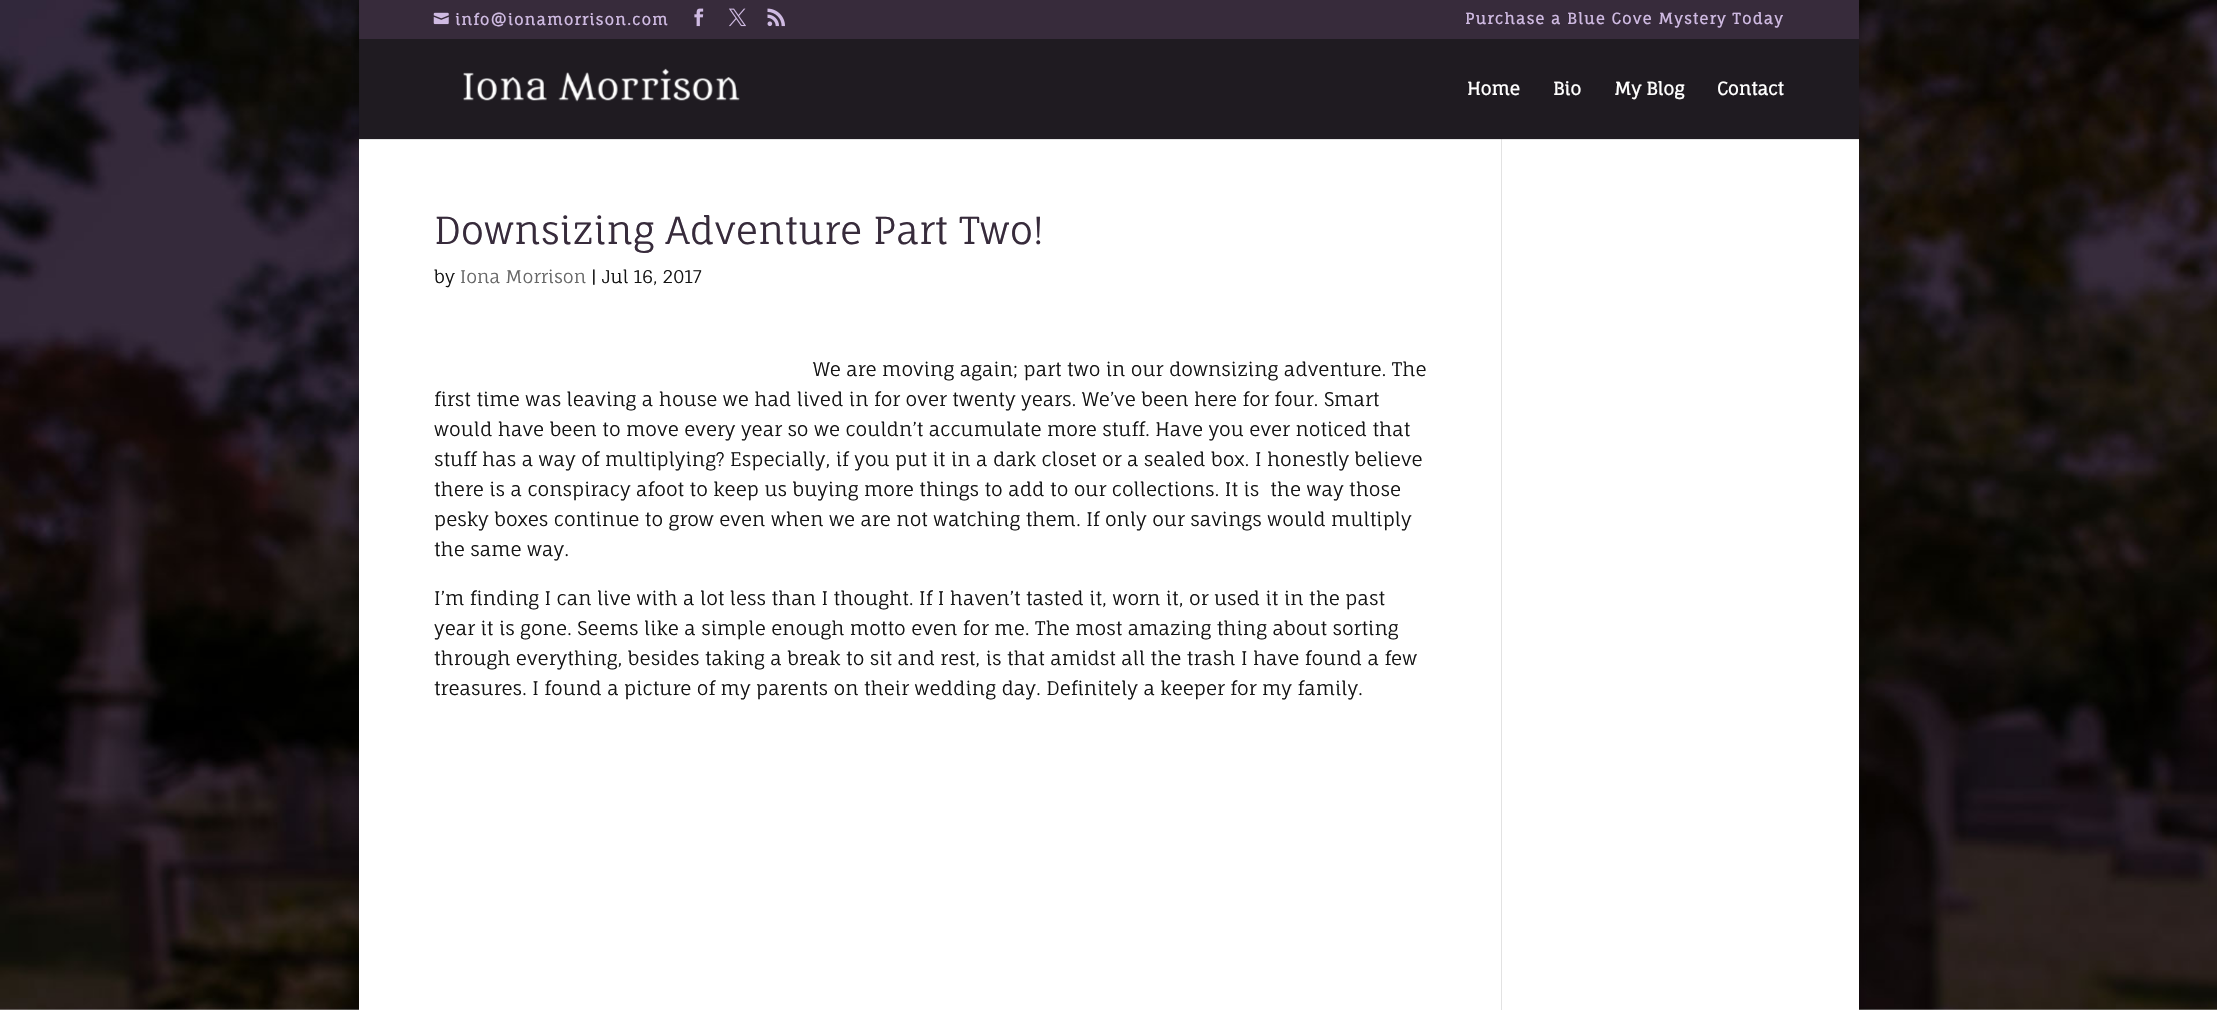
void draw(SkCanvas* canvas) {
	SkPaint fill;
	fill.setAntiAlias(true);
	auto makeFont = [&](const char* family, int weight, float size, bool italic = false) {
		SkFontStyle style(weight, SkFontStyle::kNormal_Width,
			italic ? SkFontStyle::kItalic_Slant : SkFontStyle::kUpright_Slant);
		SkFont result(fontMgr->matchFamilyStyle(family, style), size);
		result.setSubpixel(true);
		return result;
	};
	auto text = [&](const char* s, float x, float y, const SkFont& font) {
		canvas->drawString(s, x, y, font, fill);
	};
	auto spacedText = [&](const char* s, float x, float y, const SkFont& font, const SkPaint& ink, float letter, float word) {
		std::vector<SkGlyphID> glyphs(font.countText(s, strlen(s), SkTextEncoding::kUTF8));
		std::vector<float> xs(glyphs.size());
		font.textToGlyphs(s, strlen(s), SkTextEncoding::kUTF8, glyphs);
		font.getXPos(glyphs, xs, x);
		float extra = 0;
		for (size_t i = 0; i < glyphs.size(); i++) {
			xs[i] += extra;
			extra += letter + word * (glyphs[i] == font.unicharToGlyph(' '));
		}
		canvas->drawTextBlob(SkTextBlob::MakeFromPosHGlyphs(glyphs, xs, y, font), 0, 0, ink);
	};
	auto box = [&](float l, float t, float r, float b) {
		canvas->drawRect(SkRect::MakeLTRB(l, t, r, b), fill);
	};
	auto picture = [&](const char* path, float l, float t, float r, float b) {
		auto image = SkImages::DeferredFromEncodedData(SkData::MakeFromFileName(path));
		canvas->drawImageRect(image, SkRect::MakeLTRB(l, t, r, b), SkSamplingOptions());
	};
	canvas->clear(0xFFFFFFFF);
	picture("image0.png", 0, 0, 2217, 1010);
	fill.setColor(0x33000000);
	fill.setMaskFilter(SkMaskFilter::MakeBlur(kNormal_SkBlurStyle, 6));
	canvas->drawRect(SkRect::MakeLTRB(359, 0, 1859, 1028), fill);
	fill.setMaskFilter(nullptr);
	fill.setColor(0xFF372B3B);
	box(359, 0, 1859, 39);
	picture("image1.png", 433, 12, 449, 25);
	picture("image2.png", 694, 8, 704, 27);
	picture("image3.png", 729, 8, 746, 27);
	picture("image4.png", 767, 8, 785, 27);
	fill.setColor(0xFFFFFFFF);
	box(359, 139, 1859, 1010);
	fill.setColor(0xFFE2E2E2);
	box(1501, 139, 1502, 1010);
	fill.setColor(0x1A000000);
	canvas->drawPath(SkPathBuilder().moveTo(359, 139).lineTo(359, 140).lineTo(1859, 140).lineTo(1859, 40).lineTo(1859, 139).close().detach(), fill);
	fill.setColor(0xFF1F1B21);
	box(359, 39, 1859, 139);
	picture("image5.png", 463, 68, 740, 102);
	auto font1 = makeFont("Fauna One", 700, 15);
	fill.setColor(0xFFCFBAE2);
	spacedText("info@ionamorrison.com", 455, 25, font1, fill, 1.25f, 0);
	spacedText("Purchase a Blue Cove Mystery Today", 1465, 24, font1, fill, 1.25f, 0);
	auto font2 = makeFont("Fauna One", 700, 17.5f);
	fill.setColor(0xFFFFFFFF);
	text("Home", 1467, 95, font2);
	text("Bio", 1553, 95, font2);
	text("My Blog", 1614, 95, font2);
	text("Contact", 1717, 95, font2);
	auto font3 = makeFont("Fauna One", 400, 37.5f);
	fill.setColor(0xFF372B3B);
	text("Downsizing Adventure Part Two!", 434, 244, font3);
	auto font4 = makeFont("Fauna One", 400, 17.5f);
	fill.setColor(0xFF141414);
	text("by", 434, 283, font4);
	fill.setColor(0xFF666666);
	text("Iona Morrison", 460, 283, font4);
	fill.setColor(0xFF141414);
	text("| Jul 16, 2017", 591, 283, font4);
	auto font5 = makeFont("Fauna One", 400, 18.75f);
	text("We are moving again; part two in our downsizing adventure. The", 813, 376, font5);
	text("first time was leaving a house we had lived in for over twenty years. We’ve been here for four. Smart", 434, 406, font5);
	text("would have been to move every year so we couldn’t accumulate more stuff. Have you ever noticed that", 434, 436, font5);
	text("stuff has a way of multiplying? Especially, if you put it in a dark closet or a sealed box. I honestly believe", 434, 466, font5);
	text("there is a conspiracy afoot to keep us buying more things to add to our collections. It is  the way those", 434, 496, font5);
	text("pesky boxes continue to grow even when we are not watching them. If only our savings would multiply", 434, 526, font5);
	text("the same way.", 434, 556, font5);
	text("I’m finding I can live with a lot less than I thought. If I haven’t tasted it, worn it, or used it in the past", 434, 605, font5);
	text("year it is gone. Seems like a simple enough motto even for me. The most amazing thing about sorting", 434, 635, font5);
	text("through everything, besides taking a break to sit and rest, is that amidst all the trash I have found a few", 434, 665, font5);
	text("treasures. I found a picture of my parents on their wedding day. Definitely a keeper for my family.", 434, 695, font5);
}
